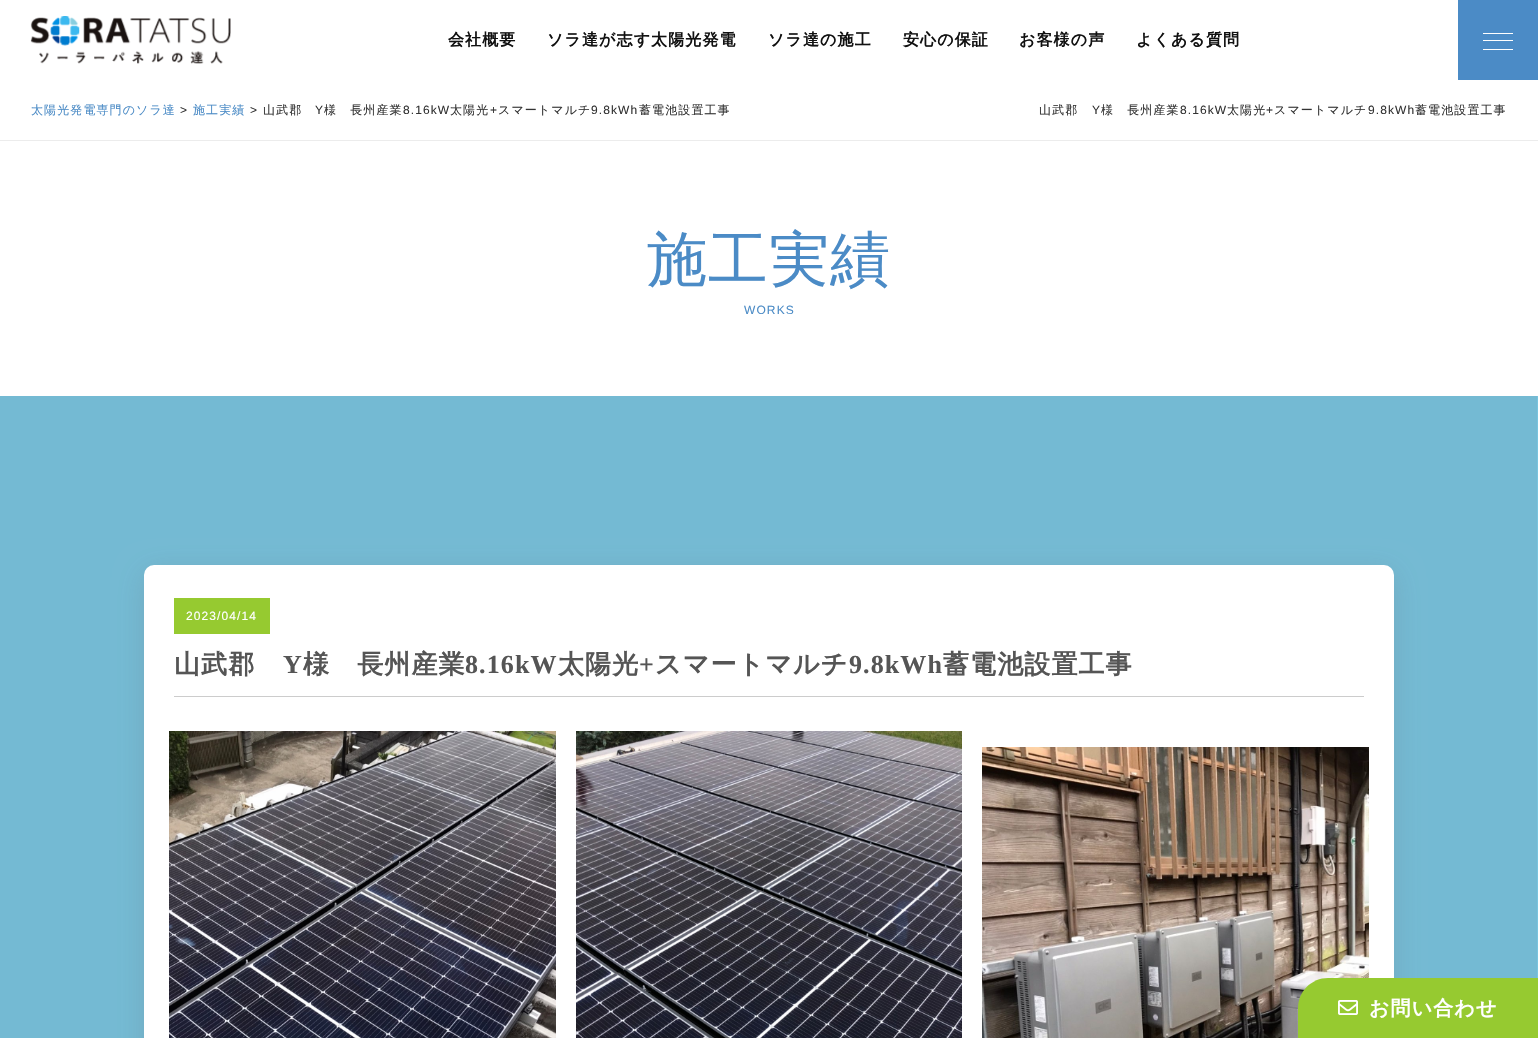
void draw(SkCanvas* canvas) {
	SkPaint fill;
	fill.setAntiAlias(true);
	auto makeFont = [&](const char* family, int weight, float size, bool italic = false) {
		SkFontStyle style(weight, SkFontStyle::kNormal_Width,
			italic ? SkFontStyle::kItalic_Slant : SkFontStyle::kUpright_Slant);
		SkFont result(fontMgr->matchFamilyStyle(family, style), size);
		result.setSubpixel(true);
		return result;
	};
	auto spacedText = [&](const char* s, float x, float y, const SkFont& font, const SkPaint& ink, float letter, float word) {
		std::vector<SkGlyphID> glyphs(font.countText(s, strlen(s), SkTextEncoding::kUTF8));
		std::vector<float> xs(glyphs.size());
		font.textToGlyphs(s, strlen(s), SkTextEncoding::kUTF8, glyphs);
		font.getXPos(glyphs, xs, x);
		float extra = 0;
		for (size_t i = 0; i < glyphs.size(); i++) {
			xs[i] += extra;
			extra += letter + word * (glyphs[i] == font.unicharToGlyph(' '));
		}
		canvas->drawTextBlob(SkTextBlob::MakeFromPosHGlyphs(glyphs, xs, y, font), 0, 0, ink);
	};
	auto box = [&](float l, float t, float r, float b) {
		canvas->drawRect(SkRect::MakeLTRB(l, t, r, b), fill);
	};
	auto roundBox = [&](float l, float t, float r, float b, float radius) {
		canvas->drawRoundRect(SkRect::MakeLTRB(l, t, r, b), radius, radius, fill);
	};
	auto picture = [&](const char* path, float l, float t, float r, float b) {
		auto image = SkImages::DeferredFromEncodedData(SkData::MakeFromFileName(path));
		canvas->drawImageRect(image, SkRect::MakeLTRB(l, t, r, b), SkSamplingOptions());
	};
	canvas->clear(0xFFFFFFFF);
	picture("image0.png", 30, 16, 231, 64);
	fill.setColor(0xFF4B8BC6);
	box(1458, 0, 1538, 80);
	fill.setColor(0xFFFFFFFF);
	box(1483, 40, 1513, 41);
	box(1483, 33, 1513, 34);
	box(1483, 49, 1513, 50);
	fill.setColor(0xFFECECEC);
	box(0, 140, 1538, 141);
	picture("image1.png", 0, 396, 1538, 1038);
	fill.setColor(0x3364646F);
	fill.setMaskFilter(SkMaskFilter::MakeBlur(kNormal_SkBlurStyle, 14.5f));
	canvas->drawRoundRect(SkRect::MakeLTRB(144, 572, 1394, 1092), 10, 10, fill);
	fill.setMaskFilter(nullptr);
	fill.setColor(0xFFFFFFFF);
	roundBox(144, 565, 1394, 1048, 10);
	fill.setColor(0xFFCCCCCC);
	box(174, 696, 1364, 697);
	fill.setColor(0xFF96CA30);
	box(174, 598, 270, 634);
	picture("image2.png", 169, 731, 556, 1038);
	picture("image3.png", 576, 731, 962, 1038);
	picture("image4.png", 982, 747, 1369, 1038);
	canvas->drawPath(SkPathBuilder().moveTo(1328, 978).lineTo(1538, 978).lineTo(1538, 1038).lineTo(1298, 1038).lineTo(1298, 1008).cubicTo(1298, 991.5f, 1311.5f, 978, 1328, 978).close().detach(), fill);
	picture("image5.png", 1338, 1000, 1358, 1015);
	auto font1 = makeFont("WenQuanYi Zen Hei", 700, 16);
	fill.setColor(0xFF111111);
	spacedText("会社概要", 448, 45, font1, fill, 1.1f, 0);
	spacedText("ソラ達が志す太陽光発電", 547, 45, font1, fill, 1.1f, 0);
	spacedText("ソラ達の施工", 768, 45, font1, fill, 1.1f, 0);
	spacedText("安心の保証", 903, 45, font1, fill, 1.1f, 0);
	spacedText("お客様の声", 1019, 45, font1, fill, 1.1f, 0);
	spacedText("よくある質問", 1136, 45, font1, fill, 1.1f, 0);
	auto font2 = makeFont("WenQuanYi Zen Hei", 500, 12);
	fill.setColor(0xFF4B8BC6);
	spacedText("太陽光発電専門のソラ達", 31, 114, font2, fill, 1.1f, 0);
	auto font3 = makeFont("Liberation Sans", 400, 12);
	fill.setColor(0xFF333333);
	spacedText(">", 180, 114, font3, fill, 1.1f, 0);
	fill.setColor(0xFF4B8BC6);
	spacedText("施工実績", 193, 114, font2, fill, 1.1f, 0);
	fill.setColor(0xFF333333);
	spacedText(">", 250, 114, font3, fill, 1.1f, 0);
	spacedText("山武郡", 263, 114, font2, fill, 1.1f, 0);
	spacedText("Y", 315, 114, font3, fill, 1.1f, 0);
	spacedText("様　長州産業", 324, 114, font2, fill, 1.1f, 0);
	spacedText("8.16kW", 403, 114, font3, fill, 1.1f, 0);
	spacedText("太陽光", 450, 114, font2, fill, 1.1f, 0);
	spacedText("+", 490, 114, font3, fill, 1.1f, 0);
	spacedText("スマートマルチ", 498, 114, font2, fill, 1.1f, 0);
	spacedText("9.8kWh", 591, 114, font3, fill, 1.1f, 0);
	spacedText("蓄電池設置工事", 639, 114, font2, fill, 1.1f, 0);
	spacedText("山武郡", 1039, 114, font2, fill, 1.1f, 0);
	spacedText("Y", 1092, 114, font3, fill, 1.1f, 0);
	spacedText("様　長州産業", 1101, 114, font2, fill, 1.1f, 0);
	spacedText("8.16kW", 1180, 114, font3, fill, 1.1f, 0);
	spacedText("太陽光", 1227, 114, font2, fill, 1.1f, 0);
	spacedText("+", 1266, 114, font3, fill, 1.1f, 0);
	spacedText("スマートマルチ", 1274, 114, font2, fill, 1.1f, 0);
	spacedText("9.8kWh", 1368, 114, font3, fill, 1.1f, 0);
	spacedText("蓄電池設置工事", 1415, 114, font2, fill, 1.1f, 0);
	auto font4 = makeFont("WenQuanYi Zen Hei", 500, 60);
	fill.setColor(0xFF4B8BC6);
	spacedText("施工実績", 647, 280, font4, fill, 1.1f, 0);
	spacedText("WORKS", 744, 314, font3, fill, 1.1f, 0);
	fill.setColor(0xFFFFFFFF);
	spacedText("2023/04/14", 186, 620, font3, fill, 1.1f, 0);
	auto font5 = makeFont("WenQuanYi Zen Hei", 700, 26);
	fill.setColor(0xFF555555);
	spacedText("山武郡", 174, 673, font5, fill, 1.1f, 0);
	auto font6 = makeFont("Liberation Serif", 700, 26);
	spacedText("Y", 283, 673, font6, fill, 1.1f, 0);
	spacedText("様　長州産業", 303, 673, font5, fill, 1.1f, 0);
	spacedText("8.16kW", 465, 673, font6, fill, 1.1f, 0);
	spacedText("太陽光", 558, 673, font5, fill, 1.1f, 0);
	spacedText("+", 639, 673, font6, fill, 1.1f, 0);
	spacedText("スマートマルチ", 655, 673, font5, fill, 1.1f, 0);
	spacedText("9.8kWh", 849, 673, font6, fill, 1.1f, 0);
	spacedText("蓄電池設置工事", 943, 673, font5, fill, 1.1f, 0);
	auto font7 = makeFont("WenQuanYi Zen Hei", 700, 20);
	fill.setColor(0xFFFFFFFF);
	spacedText("お問い合わせ", 1369, 1015, font7, fill, 1.1f, 0);
}
